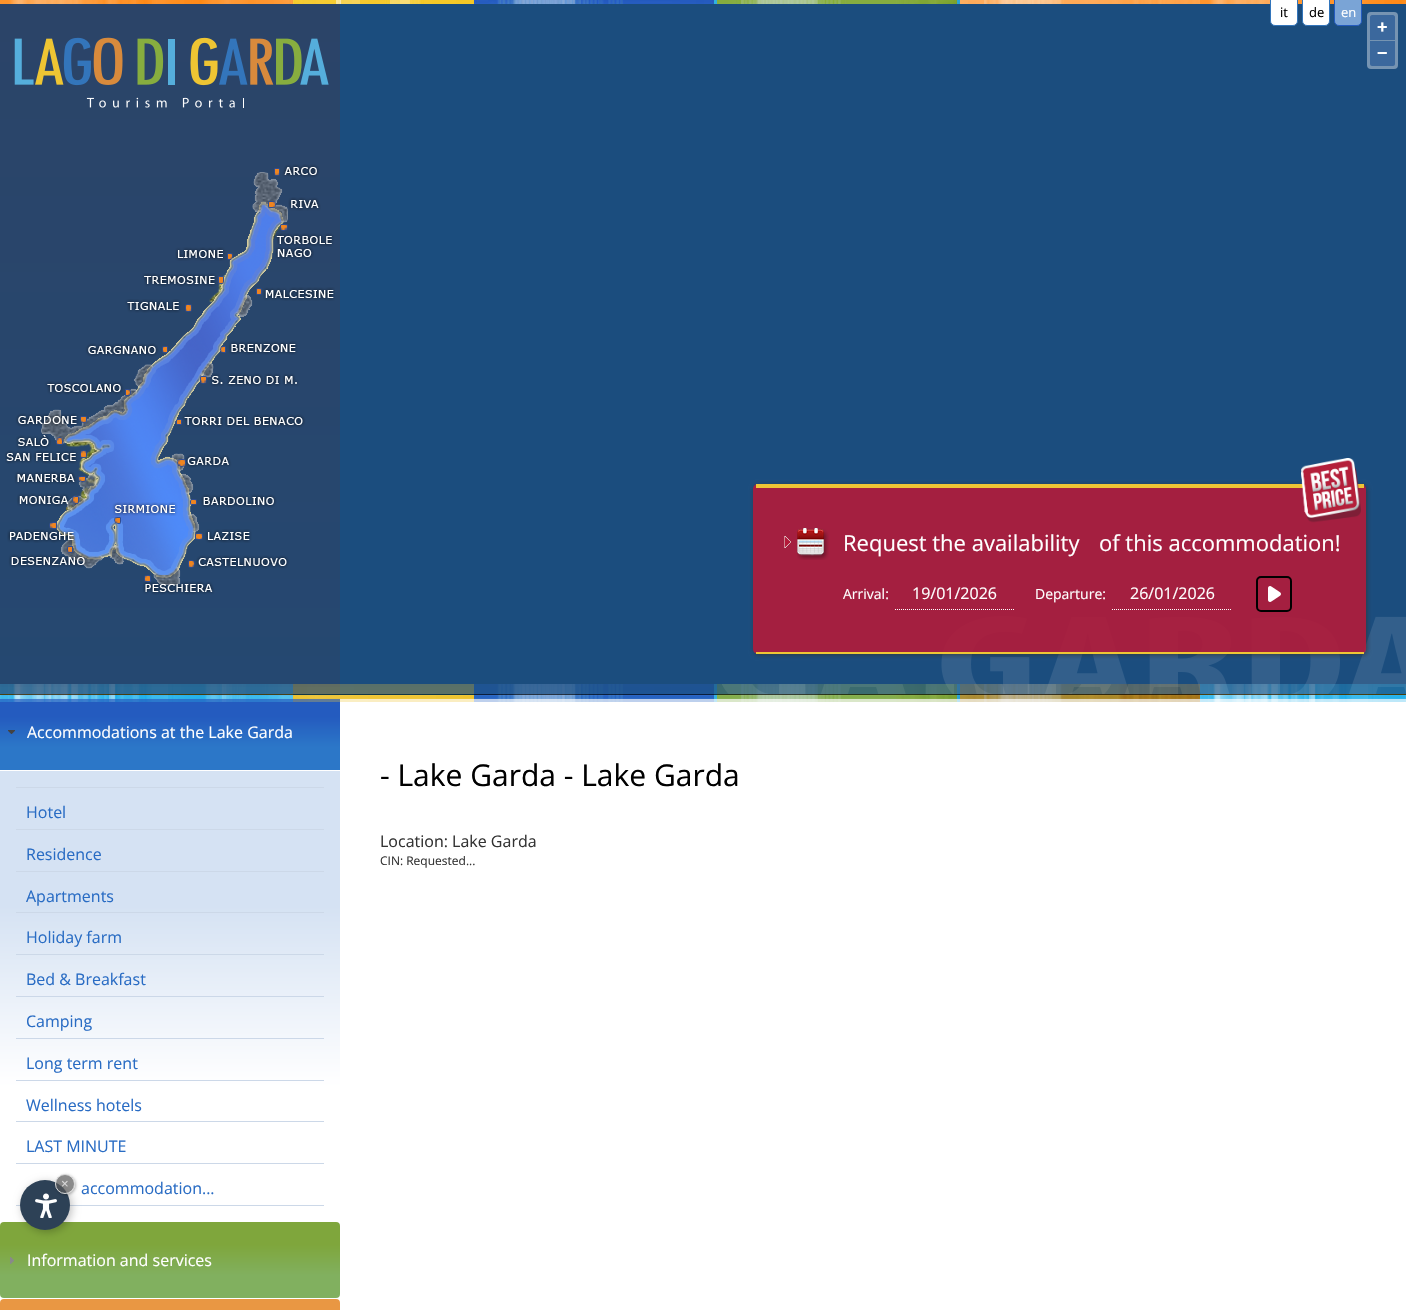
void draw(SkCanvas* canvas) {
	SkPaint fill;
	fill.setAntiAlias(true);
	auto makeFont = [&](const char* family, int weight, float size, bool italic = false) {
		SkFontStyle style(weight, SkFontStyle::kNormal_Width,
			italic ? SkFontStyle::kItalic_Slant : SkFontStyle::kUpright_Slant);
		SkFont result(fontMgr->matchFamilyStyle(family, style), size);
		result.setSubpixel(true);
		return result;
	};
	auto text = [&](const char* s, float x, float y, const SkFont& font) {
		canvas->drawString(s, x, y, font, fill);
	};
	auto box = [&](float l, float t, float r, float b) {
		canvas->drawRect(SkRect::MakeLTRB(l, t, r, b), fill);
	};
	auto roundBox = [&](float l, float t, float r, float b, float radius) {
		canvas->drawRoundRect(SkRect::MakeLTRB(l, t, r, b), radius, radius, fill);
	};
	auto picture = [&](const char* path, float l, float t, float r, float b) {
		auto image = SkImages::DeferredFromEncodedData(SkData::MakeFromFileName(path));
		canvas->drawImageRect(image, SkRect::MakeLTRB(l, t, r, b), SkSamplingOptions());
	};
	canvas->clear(0xFFFFFFFF);
	{
		const SkColor colors[] = {0xFF2B4468, 0xFF254871};
		const float stops[] = {0, 1};
		const SkPoint ends[] = {{170, 4}, {170, 694}};
		fill.setShader(SkGradientShader::MakeLinear(ends, colors, stops, 2, SkTileMode::kClamp));
		fill.setAlpha(255);
	}
	box(0, 4, 340, 694);
	picture("image0.png", 14, 37, 329, 108);
	picture("image1.png", 5, 164, 335, 595);
	picture("image2.png", 0, 0, 1406, 4);
	fill.setShader(nullptr);
	fill.setColor(0xFF1B4D7E);
	box(340, 4, 1406, 694);
	fill.setColor(0xFFFFFFFF);
	canvas->drawPath(SkPathBuilder().moveTo(1270.5f, -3.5f).lineTo(1297.5f, -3.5f).lineTo(1297.5f, 21).cubicTo(1297.5f, 23.5f, 1295.5f, 25.5f, 1293, 25.5f).lineTo(1275, 25.5f).cubicTo(1272.5f, 25.5f, 1270.5f, 23.5f, 1270.5f, 21).close().detach(), fill);
	fill.setStyle(SkPaint::kStroke_Style);
	fill.setStrokeWidth(1);
	fill.setColor(0xFF3375BB);
	canvas->drawPath(SkPathBuilder().moveTo(1270.5f, -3.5f).lineTo(1297.5f, -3.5f).lineTo(1297.5f, 21).cubicTo(1297.5f, 23.5f, 1295.5f, 25.5f, 1293, 25.5f).lineTo(1275, 25.5f).cubicTo(1272.5f, 25.5f, 1270.5f, 23.5f, 1270.5f, 21).close().detach(), fill);
	fill.setStyle(SkPaint::kFill_Style);
	fill.setColor(0xFFFFFFFF);
	canvas->drawPath(SkPathBuilder().moveTo(1302.5f, -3.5f).lineTo(1329.5f, -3.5f).lineTo(1329.5f, 21).cubicTo(1329.5f, 23.5f, 1327.5f, 25.5f, 1325, 25.5f).lineTo(1307, 25.5f).cubicTo(1304.5f, 25.5f, 1302.5f, 23.5f, 1302.5f, 21).close().detach(), fill);
	fill.setStyle(SkPaint::kStroke_Style);
	fill.setColor(0xFF3375BB);
	canvas->drawPath(SkPathBuilder().moveTo(1302.5f, -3.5f).lineTo(1329.5f, -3.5f).lineTo(1329.5f, 21).cubicTo(1329.5f, 23.5f, 1327.5f, 25.5f, 1325, 25.5f).lineTo(1307, 25.5f).cubicTo(1304.5f, 25.5f, 1302.5f, 23.5f, 1302.5f, 21).close().detach(), fill);
	fill.setStyle(SkPaint::kFill_Style);
	fill.setColor(0xFF7AA4D6);
	canvas->drawPath(SkPathBuilder().moveTo(1334.5f, -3.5f).lineTo(1361.5f, -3.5f).lineTo(1361.5f, 21).cubicTo(1361.5f, 23.5f, 1359.5f, 25.5f, 1357, 25.5f).lineTo(1339, 25.5f).cubicTo(1336.5f, 25.5f, 1334.5f, 23.5f, 1334.5f, 21).close().detach(), fill);
	fill.setStyle(SkPaint::kStroke_Style);
	fill.setColor(0xFF245BBF);
	canvas->drawPath(SkPathBuilder().moveTo(1334.5f, -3.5f).lineTo(1361.5f, -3.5f).lineTo(1361.5f, 21).cubicTo(1361.5f, 23.5f, 1359.5f, 25.5f, 1357, 25.5f).lineTo(1339, 25.5f).cubicTo(1336.5f, 25.5f, 1334.5f, 23.5f, 1334.5f, 21).close().detach(), fill);
	fill.setStyle(SkPaint::kFill_Style);
	fill.setColor(0xFF7694B2);
	roundBox(1367, 12, 1398, 69, 4);
	fill.setColor(0xFF3B689D);
	canvas->drawPath(SkPathBuilder().moveTo(1372, 15).lineTo(1393, 15).cubicTo(1394, 15, 1395, 16, 1395, 17).lineTo(1395, 40).lineTo(1370, 40).lineTo(1370, 17).cubicTo(1370, 16, 1371, 15, 1372, 15).close().detach(), fill);
	canvas->drawPath(SkPathBuilder().moveTo(1370, 41).lineTo(1395, 41).lineTo(1395, 64).cubicTo(1395, 65, 1394, 66, 1393, 66).lineTo(1372, 66).cubicTo(1371, 66, 1370, 65, 1370, 64).close().detach(), fill);
	picture("image7.png", 941, 616, 1406, 694);
	canvas->save();
	canvas->clipPath(SkPathBuilder(SkPathFillType::kEvenOdd).moveTo(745, 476).lineTo(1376, 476).lineTo(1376, 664).lineTo(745, 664).close().moveTo(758, 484).lineTo(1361, 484).cubicTo(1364, 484, 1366, 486, 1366, 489).lineTo(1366, 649).cubicTo(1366, 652, 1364, 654, 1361, 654).lineTo(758, 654).cubicTo(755, 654, 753, 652, 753, 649).lineTo(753, 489).cubicTo(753, 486, 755, 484, 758, 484).close().detach(), true);
	fill.setColor(0xBF323232);
	fill.setMaskFilter(SkMaskFilter::MakeBlur(kNormal_SkBlurStyle, 2.5f));
	canvas->drawRoundRect(SkRect::MakeLTRB(754, 485, 1367, 655), 5, 5, fill);
	fill.setMaskFilter(nullptr);
	canvas->restore();
	fill.setColor(0xE6B31939);
	roundBox(753, 484, 1366, 654, 5);
	fill.setColor(0xFFEEC535);
	box(756, 484, 1364, 488);
	box(756, 652, 1364, 654);
	picture("image3.png", 1301, 458, 1361, 523);
	picture("image4.png", 784, 536, 791, 548);
	picture("image5.png", 797, 528, 829, 560);
	fill.setStyle(SkPaint::kStroke_Style);
	fill.setColor(0xFFFFFFFF);
	fill.setPathEffect(SkDashPathEffect::Make({{1, 1}}, 0));
	canvas->drawPath(SkPathBuilder().moveTo(895, 609.5f).lineTo(1015, 609.5f).detach(), fill);
	fill.setPathEffect(nullptr);
	fill.setPathEffect(SkDashPathEffect::Make({{1, 1}}, 0));
	canvas->drawPath(SkPathBuilder().moveTo(1112, 609.5f).lineTo(1232, 609.5f).detach(), fill);
	fill.setPathEffect(nullptr);
	picture("image6.png", 1268, 586, 1281, 602);
	fill.setStrokeWidth(2);
	fill.setColor(0xFF000000);
	canvas->drawRoundRect(SkRect::MakeLTRB(1257, 577, 1291, 611), 4, 4, fill);
	fill.setStyle(SkPaint::kFill_Style);
	{
		const SkColor colors[] = {0xFF245BBF, 0xFF2C77C8};
		const float stops[] = {0.3f, 0.7f};
		const SkPoint ends[] = {{170, 694}, {170, 770}};
		fill.setShader(SkGradientShader::MakeLinear(ends, colors, stops, 2, SkTileMode::kClamp));
		fill.setAlpha(255);
	}
	canvas->drawPath(SkPathBuilder().moveTo(4, 694).lineTo(336, 694).cubicTo(338, 694, 340, 696, 340, 698).lineTo(340, 770).lineTo(0, 770).lineTo(0, 698).cubicTo(0, 696, 2, 694, 4, 694).close().detach(), fill);
	picture("image8.png", 0, 684, 1406, 702);
	picture("image9.png", 8, 730, 15, 734);
	{
		const SkColor colors[] = {0xFFD5E2F3, 0xFFFFFFFF};
		const float stops[] = {0.3f, 0.7f};
		const SkPoint ends[] = {{170, 771}, {170, 1222}};
		fill.setShader(SkGradientShader::MakeLinear(ends, colors, stops, 2, SkTileMode::kClamp));
		fill.setAlpha(255);
	}
	canvas->drawPath(SkPathBuilder().moveTo(0, 771).lineTo(340, 771).lineTo(340, 1218).cubicTo(340, 1220, 338, 1222, 336, 1222).lineTo(4, 1222).cubicTo(2, 1222, 0, 1220, 0, 1218).close().detach(), fill);
	fill.setShader(nullptr);
	fill.setColor(0xFFCCD8E8);
	box(16, 787, 324, 788);
	box(16, 829, 324, 830);
	box(16, 871, 324, 872);
	box(16, 912, 324, 913);
	box(16, 954, 324, 955);
	box(16, 996, 324, 997);
	box(16, 1038, 324, 1039);
	box(16, 1080, 324, 1081);
	box(16, 1121, 324, 1122);
	box(16, 1163, 324, 1164);
	box(16, 1205, 324, 1206);
	{
		const SkColor colors[] = {0xFF7FA63C, 0xFF81B05F};
		const float stops[] = {0.3f, 0.7f};
		const SkPoint ends[] = {{170, 1222}, {170, 1298}};
		fill.setShader(SkGradientShader::MakeLinear(ends, colors, stops, 2, SkTileMode::kClamp));
		fill.setAlpha(255);
	}
	roundBox(0, 1222, 340, 1298, 4);
	picture("image10.png", 10, 1257, 14, 1264);
	{
		const SkColor colors[] = {0xFFE99743, 0xFFEEA456};
		const float stops[] = {0.3f, 0.7f};
		const SkPoint ends[] = {{170, 1299}, {170, 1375}};
		fill.setShader(SkGradientShader::MakeLinear(ends, colors, stops, 2, SkTileMode::kClamp));
		fill.setAlpha(255);
	}
	roundBox(0, 1299, 340, 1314, 4);
	fill.setShader(nullptr);
	fill.setColor(0x40000000);
	fill.setMaskFilter(SkMaskFilter::MakeBlur(kNormal_SkBlurStyle, 4));
	canvas->drawRoundRect(SkRect::MakeLTRB(22, 1182, 72, 1232), 25, 25, fill);
	fill.setMaskFilter(nullptr);
	fill.setColor(0xFF2D4156);
	canvas->drawCircle(45, 1205, 25, fill);
	picture("image11.png", 35, 1193, 57, 1218);
	canvas->save();
	canvas->clipPath(SkPathBuilder(SkPathFillType::kEvenOdd).moveTo(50, 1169).lineTo(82, 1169).lineTo(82, 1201).lineTo(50, 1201).close().moveTo(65, 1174).cubicTo(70.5f, 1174, 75, 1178.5f, 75, 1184).cubicTo(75, 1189.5f, 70.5f, 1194, 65, 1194).cubicTo(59.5f, 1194, 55, 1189.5f, 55, 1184).cubicTo(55, 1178.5f, 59.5f, 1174, 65, 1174).close().detach(), true);
	fill.setColor(0x4D000000);
	fill.setMaskFilter(SkMaskFilter::MakeBlur(kNormal_SkBlurStyle, 1.5f));
	canvas->drawRoundRect(SkRect::MakeLTRB(56, 1175, 76, 1195), 10, 10, fill);
	fill.setMaskFilter(nullptr);
	canvas->restore();
	fill.setColor(0xB35A5A5A);
	canvas->drawCircle(65, 1184, 9.5f, fill);
	fill.setStyle(SkPaint::kStroke_Style);
	fill.setStrokeWidth(1);
	fill.setColor(0xFFDADADA);
	canvas->drawCircle(65, 1184, 9.5f, fill);
	auto font1 = makeFont("Open Sans", 400, 13);
	fill.setStyle(SkPaint::kFill_Style);
	fill.setColor(0xFF000000);
	text("it", 1280, 17, font1);
	text("de", 1309, 17, font1);
	fill.setColor(0xFFFFFFFF);
	text("en", 1341, 17, font1);
	auto font2 = makeFont("Liberation Sans", 700, 18);
	text("+", 1377, 33, font2);
	text("−", 1377, 59, font2);
	auto font3 = makeFont("Open Sans", 400, 22);
	text("Request the availability", 843, 551, font3);
	text("of this accommodation!", 1099, 551, font3);
	auto font4 = makeFont("Open Sans", 400, 14);
	text("Arrival:", 843, 599, font4);
	auto font5 = makeFont("Open Sans", 400, 16);
	text("19/01/2026", 912, 599, font5);
	text("Departure:", 1035, 599, font4);
	text("26/01/2026", 1130, 599, font5);
	text("Accommodations at the Lake Garda", 27, 738, font5);
	fill.setColor(0xFF296CC4);
	text("Hotel", 26, 818, font5);
	text("Residence", 26, 860, font5);
	text("Apartments", 26, 902, font5);
	text("Holiday farm", 26, 943, font5);
	text("Bed & Breakfast", 26, 985, font5);
	text("Camping", 26, 1027, font5);
	text("Long term rent", 26, 1069, font5);
	text("Wellness hotels", 26, 1111, font5);
	text("LAST MINUTE", 26, 1152, font5);
	text("accommodation...", 81, 1194, font5);
	fill.setColor(0xFFFFFFFF);
	text("Information and services", 27, 1266, font5);
	auto font6 = makeFont("Open Sans", 400, 30);
	fill.setColor(0xFF000000);
	text("- Lake Garda - Lake Garda", 380, 786, font6);
	fill.setColor(0xFF333333);
	text("Location: Lake Garda", 380, 847, font5);
	auto font7 = makeFont("Open Sans", 400, 12);
	text("CIN: Requested...", 380, 865, font7);
	auto font8 = makeFont("Liberation Sans", 400, 13);
	fill.setColor(0xFFDADADA);
	text("×", 61, 1188, font8);
}
